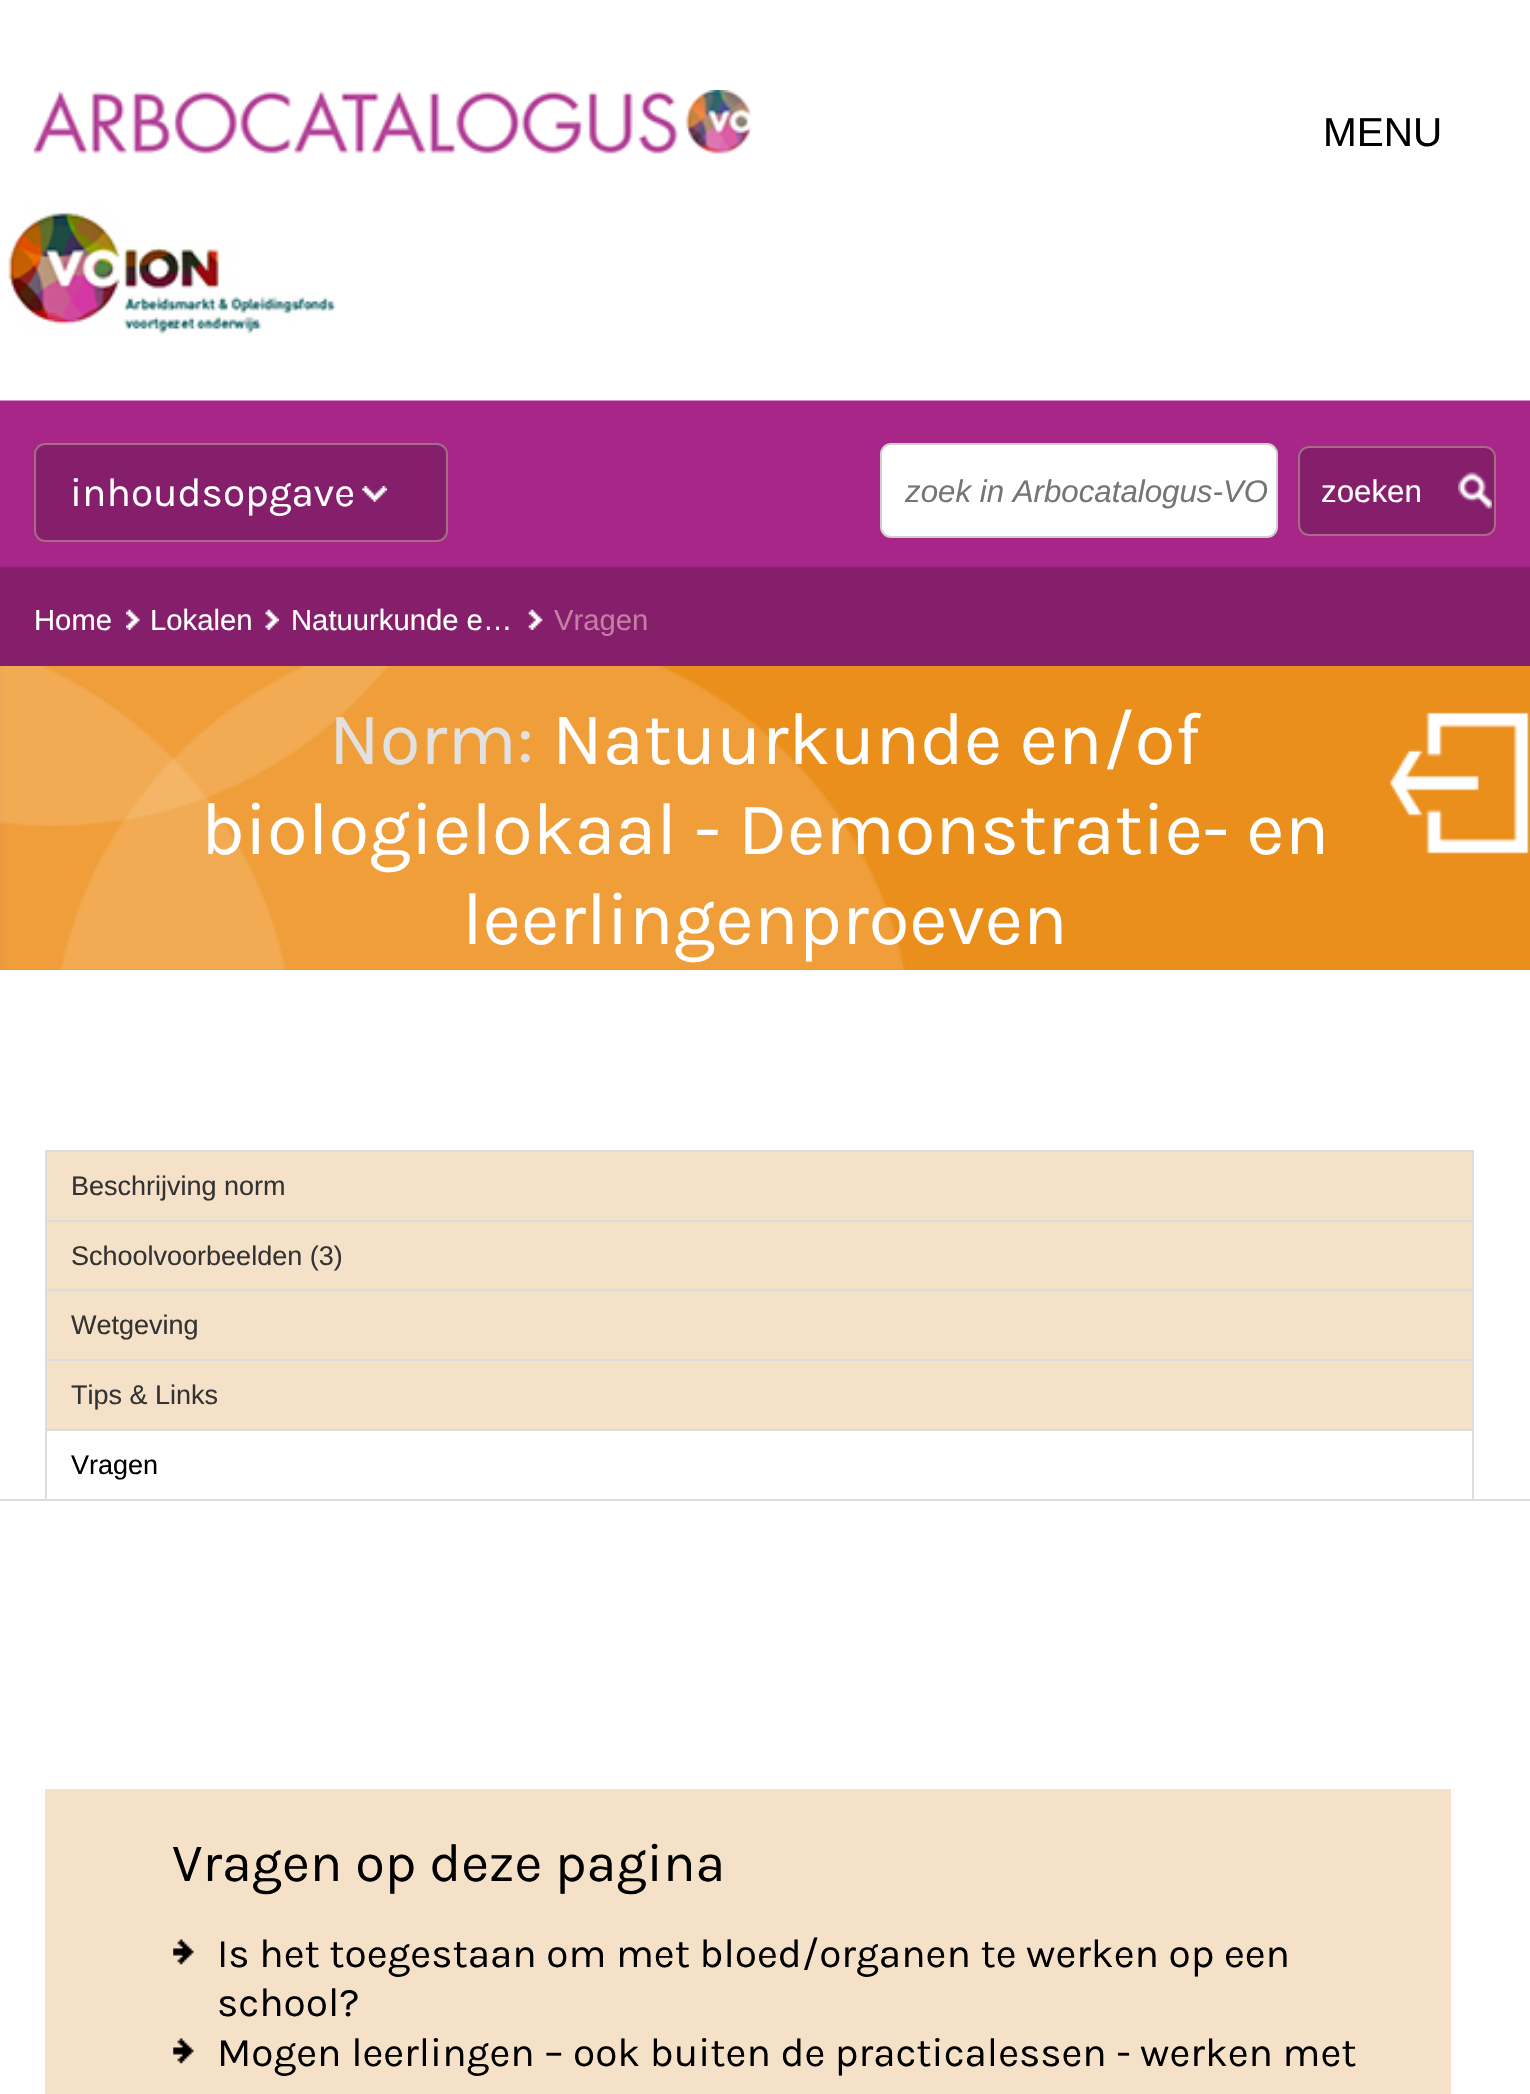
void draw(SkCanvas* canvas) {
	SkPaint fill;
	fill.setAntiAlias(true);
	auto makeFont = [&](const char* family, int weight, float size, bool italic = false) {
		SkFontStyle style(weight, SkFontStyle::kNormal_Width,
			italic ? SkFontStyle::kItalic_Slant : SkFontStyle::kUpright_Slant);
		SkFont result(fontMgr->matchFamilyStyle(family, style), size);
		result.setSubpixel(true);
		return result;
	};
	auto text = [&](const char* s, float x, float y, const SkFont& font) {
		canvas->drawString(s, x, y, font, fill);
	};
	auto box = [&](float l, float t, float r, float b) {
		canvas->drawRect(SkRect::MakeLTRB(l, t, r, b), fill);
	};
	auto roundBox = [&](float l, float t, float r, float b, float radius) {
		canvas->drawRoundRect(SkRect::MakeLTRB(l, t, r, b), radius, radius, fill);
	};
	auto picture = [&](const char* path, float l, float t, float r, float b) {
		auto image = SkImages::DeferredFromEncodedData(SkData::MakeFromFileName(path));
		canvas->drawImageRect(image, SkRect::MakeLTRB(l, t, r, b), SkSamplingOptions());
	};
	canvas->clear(0xFFFFFFFF);
	picture("image0.png", 33, 90, 752, 154);
	picture("image1.png", 8, 205, 336, 334);
	picture("image2.png", 0, 400, 1530, 666);
	fill.setColor(0xFF851F6C);
	roundBox(34, 443, 448, 542, 11);
	picture("image3.png", 362, 486, 387, 502);
	fill.setStyle(SkPaint::kStroke_Style);
	fill.setStrokeWidth(2);
	fill.setColor(0xFFA46C86);
	canvas->drawRoundRect(SkRect::MakeLTRB(35, 444, 447, 541), 10, 10, fill);
	fill.setStyle(SkPaint::kFill_Style);
	fill.setColor(0xFFFFFFFF);
	canvas->drawRoundRect(SkRect::MakeLTRB(881, 444, 1277, 537), 10, 10, fill);
	fill.setStyle(SkPaint::kStroke_Style);
	fill.setColor(0xFFCFCFCF);
	canvas->drawRoundRect(SkRect::MakeLTRB(881, 444, 1277, 537), 10, 10, fill);
	fill.setStyle(SkPaint::kFill_Style);
	fill.setColor(0xFF851F6C);
	roundBox(1298, 446, 1496, 536, 11);
	picture("image4.png", 1458, 472, 1492, 509);
	fill.setStyle(SkPaint::kStroke_Style);
	fill.setColor(0xFFA46C86);
	canvas->drawRoundRect(SkRect::MakeLTRB(1299, 447, 1495, 535), 10, 10, fill);
	picture("image5.png", 126, 609, 140, 630);
	picture("image6.png", 265, 609, 279, 630);
	picture("image7.png", 528, 609, 543, 630);
	fill.setStyle(SkPaint::kFill_Style);
	fill.setColor(0xFFEB8F1C);
	box(0, 666, 1530, 970);
	picture("image8.png", 0, 666, 905, 970);
	picture("image9.png", 1390, 712, 1529, 854);
	fill.setColor(0xFFDCDCDC);
	box(0, 1499, 1530, 1501);
	fill.setColor(0xFFF5E1C7);
	box(47, 1152, 1472, 1220);
	fill.setColor(0xFFDCDCDC);
	box(45, 1150, 1474, 1152);
	box(1472, 1150, 1474, 1220);
	box(45, 1150, 47, 1220);
	fill.setColor(0xFFF5E1C7);
	box(47, 1222, 1472, 1289);
	fill.setColor(0xFFDCDCDC);
	box(45, 1220, 1474, 1222);
	box(1472, 1220, 1474, 1289);
	box(45, 1220, 47, 1289);
	fill.setColor(0xFFF5E1C7);
	box(47, 1291, 1472, 1359);
	fill.setColor(0xFFDCDCDC);
	box(45, 1289, 1474, 1291);
	box(1472, 1289, 1474, 1359);
	box(45, 1289, 47, 1359);
	fill.setColor(0xFFF5E1C7);
	box(47, 1361, 1472, 1429);
	fill.setColor(0xFFDCDCDC);
	box(45, 1359, 1474, 1361);
	box(1472, 1359, 1474, 1429);
	box(45, 1359, 47, 1429);
	box(45, 1429, 1474, 1431);
	box(1472, 1429, 1474, 1499);
	box(45, 1429, 47, 1499);
	fill.setColor(0xFFF5E1C7);
	box(45, 1789, 1451, 2094);
	picture("image10.png", 173, 1939, 194, 1965);
	picture("image10.png", 173, 2038, 194, 2064);
	auto font1 = makeFont("Liberation Sans", 400, 40.5f);
	fill.setColor(0xFF000000);
	text("MENU", 1323, 146, font1);
	auto font2 = makeFont("Karla", 400, 40.5f);
	fill.setColor(0xFFFFFFFF);
	text("inhoudsopgave", 70, 506, font2);
	auto font3 = makeFont("Liberation Sans", 400, 31.25f, true);
	fill.setColor(0xFF757575);
	text("zoek in Arbocatalogus-VO", 905, 502, font3);
	auto font4 = makeFont("Liberation Sans", 400, 31.25f);
	fill.setColor(0xFFFFFFFF);
	text("zoeken", 1321, 502, font4);
	auto font5 = makeFont("Liberation Sans", 400, 29.25f);
	text("Home", 34, 630, font5);
	text("Lokalen", 150, 630, font5);
	text("Natuurkunde e…", 291, 630, font5);
	fill.setColor(0xFFC47FA2);
	text("Vragen", 554, 630, font5);
	auto font6 = makeFont("Karla", 400, 74.25f);
	fill.setColor(0xFFE1E1E1);
	text("Norm:", 329, 764, font6);
	fill.setColor(0xFFFFFFFF);
	text("Natuurkunde en/of", 552, 764, font6);
	text("biologielokaal - Demonstratie- en", 201, 854, font6);
	text("leerlingenproeven", 462, 944, font6);
	auto font7 = makeFont("Liberation Sans", 400, 27);
	fill.setColor(0xFF333333);
	text("Beschrijving norm", 71, 1195, font7);
	text("Schoolvoorbeelden (3)", 71, 1265, font7);
	text("Wetgeving", 71, 1334, font7);
	text("Tips & Links", 71, 1404, font7);
	fill.setColor(0xFF000000);
	text("Vragen", 71, 1474, font7);
	auto font8 = makeFont("Karla", 400, 54);
	text("Vragen op deze pagina", 172, 1881, font8);
	text("Is het toegestaan om met bloed/organen te werken op een", 217, 1967, font2);
	text("school?", 217, 2016, font2);
	text("Mogen leerlingen – ook buiten de practicalessen - werken met", 217, 2066, font2);
}
